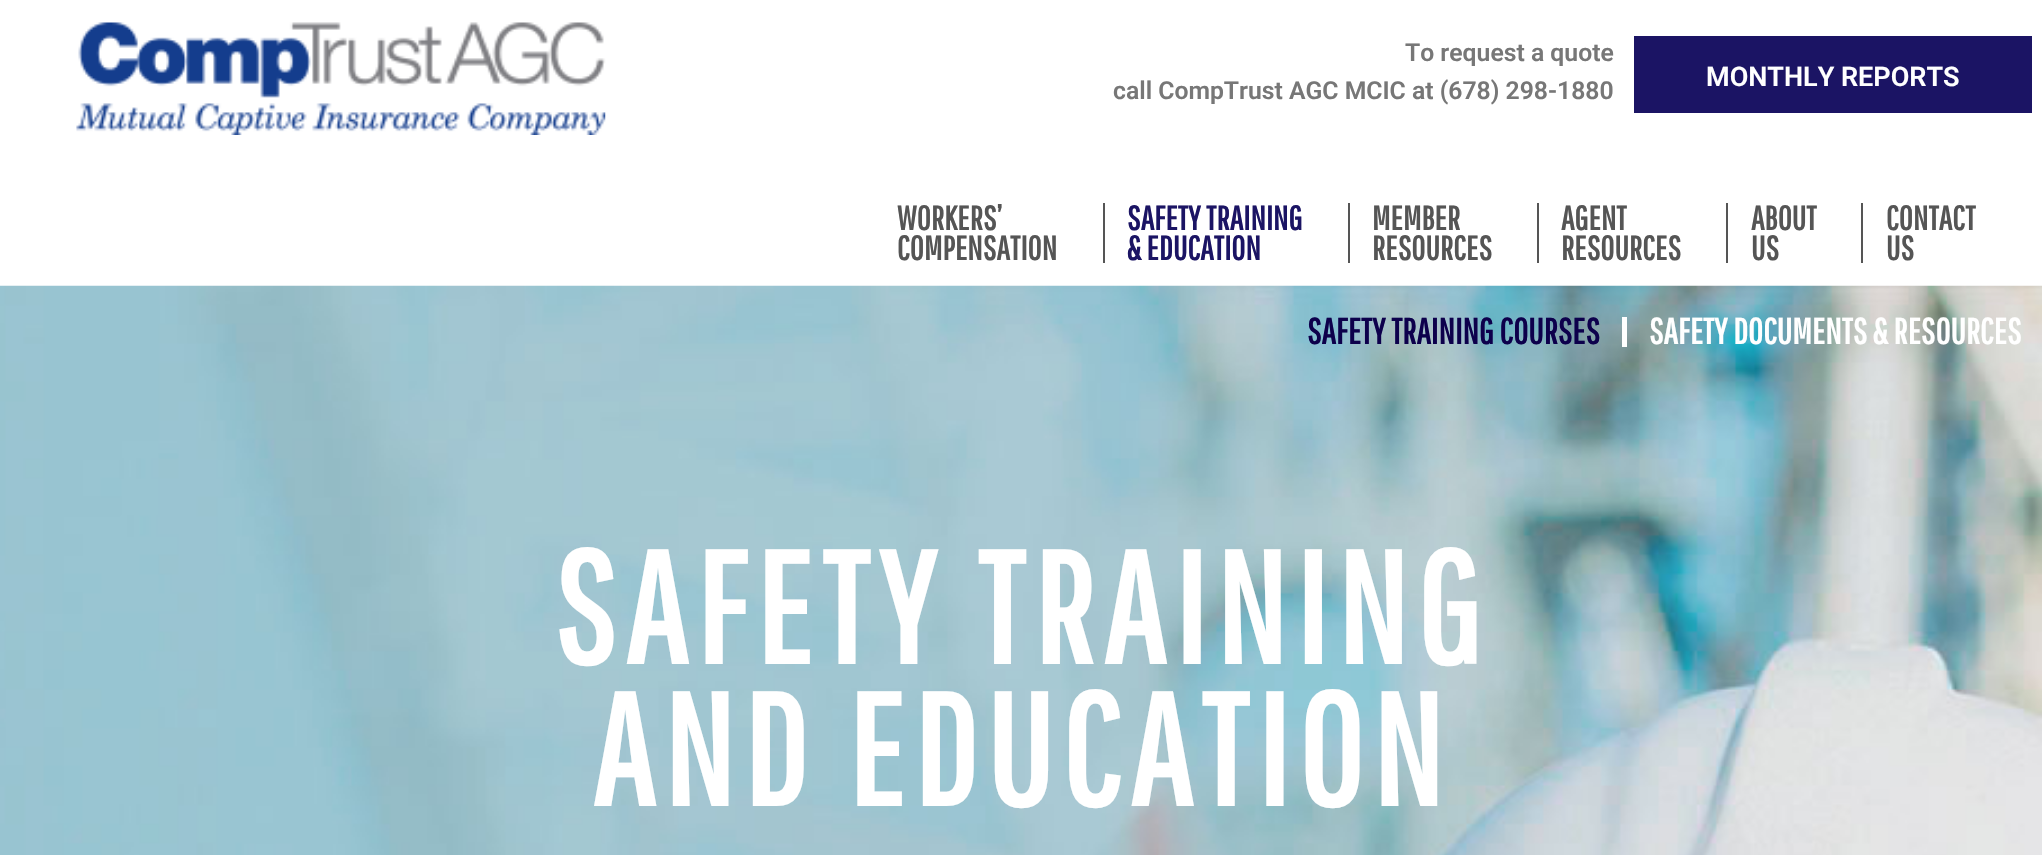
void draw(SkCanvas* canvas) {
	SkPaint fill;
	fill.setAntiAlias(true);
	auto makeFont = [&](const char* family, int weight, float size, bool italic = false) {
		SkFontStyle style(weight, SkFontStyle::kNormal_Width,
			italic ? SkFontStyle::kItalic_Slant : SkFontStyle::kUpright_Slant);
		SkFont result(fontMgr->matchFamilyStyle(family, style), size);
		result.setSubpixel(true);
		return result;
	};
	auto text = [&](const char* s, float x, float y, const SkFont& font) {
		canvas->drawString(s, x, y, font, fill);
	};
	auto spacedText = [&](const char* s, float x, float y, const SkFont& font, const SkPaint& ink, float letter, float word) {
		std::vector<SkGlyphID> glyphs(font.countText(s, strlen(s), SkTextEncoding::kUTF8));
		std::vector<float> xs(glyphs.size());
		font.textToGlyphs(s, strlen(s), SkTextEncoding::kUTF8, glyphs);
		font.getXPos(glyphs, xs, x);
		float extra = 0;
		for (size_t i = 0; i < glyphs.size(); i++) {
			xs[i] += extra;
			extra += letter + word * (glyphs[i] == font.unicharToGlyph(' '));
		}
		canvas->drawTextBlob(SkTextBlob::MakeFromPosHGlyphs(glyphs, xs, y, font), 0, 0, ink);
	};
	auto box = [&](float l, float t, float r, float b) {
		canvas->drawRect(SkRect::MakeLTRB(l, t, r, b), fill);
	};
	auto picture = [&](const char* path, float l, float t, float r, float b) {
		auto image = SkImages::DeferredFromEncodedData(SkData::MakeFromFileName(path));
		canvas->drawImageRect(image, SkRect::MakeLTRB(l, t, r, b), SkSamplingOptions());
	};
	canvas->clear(0xFFFFFFFF);
	picture("image0.png", 76, 22, 606, 135);
	fill.setColor(0xFF1B1464);
	box(1634, 36, 2032, 113);
	fill.setColor(0xFF555555);
	box(1103, 203, 1105, 263);
	box(1348, 203, 1350, 263);
	box(1537, 203, 1539, 263);
	box(1726, 203, 1728, 263);
	box(1861, 203, 1863, 263);
	picture("image1.png", 0, 285, 2042, 855);
	fill.setColor(0xFFFFFFFF);
	box(1622, 317, 1627, 347);
	auto font1 = makeFont("Roboto", 600, 24.75f);
	fill.setColor(0xFF777777);
	text("To request a quote", 1405, 61, font1);
	text("call CompTrust AGC MCIC at (678) 298-1880", 1113, 99, font1);
	auto font2 = makeFont("Roboto", 600, 27);
	fill.setColor(0xFFFFFFFF);
	text("MONTHLY REPORTS", 1706, 86, font2);
	auto font3 = makeFont("Pathway Gothic One", 700, 33.75f);
	fill.setColor(0xFF555555);
	spacedText("WORKERS’", 897, 230, font3, fill, 0.25f, 0);
	spacedText("COMPENSATION", 897, 260, font3, fill, 0.25f, 0);
	fill.setColor(0xFF1B1464);
	spacedText("SAFETY TRAINING", 1127, 230, font3, fill, 0.25f, 0);
	spacedText("& EDUCATION", 1127, 260, font3, fill, 0.25f, 0);
	fill.setColor(0xFF555555);
	spacedText("MEMBER", 1372, 230, font3, fill, 0.25f, 0);
	spacedText("RESOURCES", 1372, 260, font3, fill, 0.25f, 0);
	spacedText("AGENT", 1561, 230, font3, fill, 0.25f, 0);
	spacedText("RESOURCES", 1561, 260, font3, fill, 0.25f, 0);
	spacedText("ABOUT", 1751, 230, font3, fill, 0.25f, 0);
	spacedText("US", 1751, 260, font3, fill, 0.25f, 0);
	spacedText("CONTACT", 1886, 230, font3, fill, 0.25f, 0);
	spacedText("US", 1886, 260, font3, fill, 0.25f, 0);
	auto font4 = makeFont("Pathway Gothic One", 700, 36);
	fill.setColor(0xFF0D004C);
	spacedText("SAFETY TRAINING COURSES", 1307, 344, font4, fill, 0.25f, 0);
	fill.setColor(0xFFFFFFFF);
	spacedText("SAFETY DOCUMENTS & RESOURCES", 1649, 344, font4, fill, 0.25f, 0);
	auto font5 = makeFont("Pathway Gothic One", 700, 157.5f);
	spacedText("SAFETY TRAINING", 553, 664, font5, fill, 9, 0);
	spacedText("AND EDUCATION", 592, 806, font5, fill, 9, 0);
}
